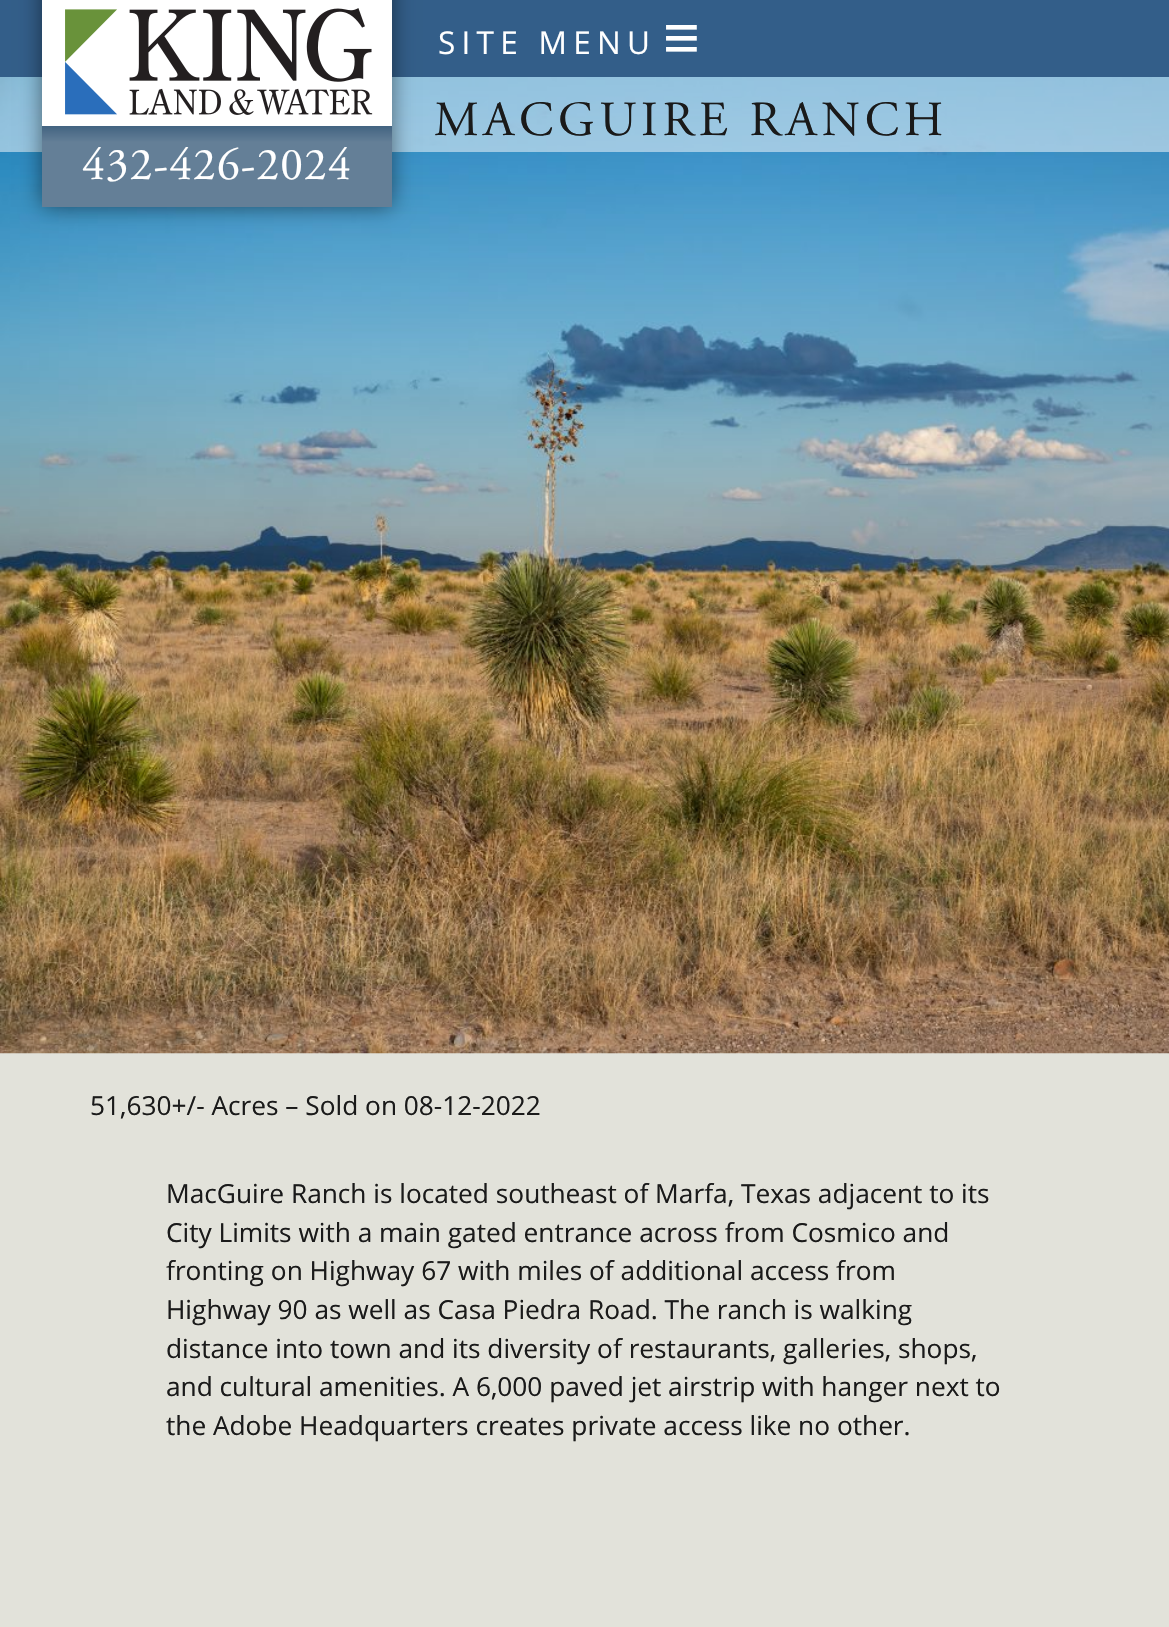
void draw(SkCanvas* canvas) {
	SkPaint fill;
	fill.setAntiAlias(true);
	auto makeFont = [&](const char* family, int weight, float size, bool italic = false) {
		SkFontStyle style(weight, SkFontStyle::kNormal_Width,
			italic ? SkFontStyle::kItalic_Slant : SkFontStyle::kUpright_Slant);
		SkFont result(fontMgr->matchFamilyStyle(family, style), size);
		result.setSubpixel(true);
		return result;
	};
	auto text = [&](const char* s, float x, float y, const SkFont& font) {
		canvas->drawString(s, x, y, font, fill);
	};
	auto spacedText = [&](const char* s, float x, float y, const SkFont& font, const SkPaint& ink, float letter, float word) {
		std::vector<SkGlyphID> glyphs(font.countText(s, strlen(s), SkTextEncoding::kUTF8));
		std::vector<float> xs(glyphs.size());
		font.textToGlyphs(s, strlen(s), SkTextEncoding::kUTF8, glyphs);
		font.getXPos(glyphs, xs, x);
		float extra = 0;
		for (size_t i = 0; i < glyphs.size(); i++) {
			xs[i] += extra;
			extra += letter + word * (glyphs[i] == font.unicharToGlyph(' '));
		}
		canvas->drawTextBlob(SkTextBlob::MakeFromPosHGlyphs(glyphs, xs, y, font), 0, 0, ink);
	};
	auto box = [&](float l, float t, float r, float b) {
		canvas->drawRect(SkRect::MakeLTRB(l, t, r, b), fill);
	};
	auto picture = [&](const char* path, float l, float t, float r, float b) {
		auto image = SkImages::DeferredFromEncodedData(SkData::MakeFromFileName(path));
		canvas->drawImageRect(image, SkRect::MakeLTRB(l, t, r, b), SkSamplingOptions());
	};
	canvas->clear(0xFFE2E2DA);
	fill.setColor(0xFF335E89);
	box(0, 0, 1169, 77);
	picture("image1.png", 0, 77, 1169, 1054);
	fill.setColor(0x80FFFFFF);
	box(0, 77, 1169, 152);
	fill.setColor(0x80000000);
	fill.setMaskFilter(SkMaskFilter::MakeBlur(kNormal_SkBlurStyle, 10.5f));
	canvas->drawRect(SkRect::MakeLTRB(42, -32, 392, 207), fill);
	fill.setMaskFilter(nullptr);
	fill.setColor(0xFFFFFFFF);
	box(42, 0, 392, 126);
	picture("image0.png", 65, 8, 373, 115);
	{
		const SkColor colors[] = {0xFF426381, 0xFF647F97};
		const float stops[] = {0, 0.2f};
		const SkPoint ends[] = {{217, 126}, {217, 207}};
		fill.setShader(SkGradientShader::MakeLinear(ends, colors, stops, 2, SkTileMode::kClamp));
		fill.setAlpha(255);
	}
	box(42, 126, 392, 207);
	auto font1 = makeFont("Open Sans", 400, 31.5f);
	fill.setShader(nullptr);
	fill.setColor(0xFFFFFFFF);
	spacedText("SITE MENU", 438, 54, font1, fill, 6.25f, 0);
	auto font2 = makeFont("Liberation Sans", 400, 63);
	spacedText("≡", 663, 59, font2, fill, 6.25f, 0);
	auto font3 = makeFont("Adobe Garamond", 400, 45.5f);
	spacedText("432-426-2024", 82, 179, font3, fill, 1.1f, 0);
	auto font4 = makeFont("Adobe Garamond", 400, 49);
	fill.setColor(0xFF1A1A1A);
	spacedText("MACGUIRE RANCH", 434, 135, font4, fill, 4.9f, 0);
	auto font5 = makeFont("Open Sans", 400, 26.25f);
	text("51,630+/- Acres – Sold on 08-12-2022", 90, 1115, font5);
	text("MacGuire Ranch is located southeast of Marfa, Texas adjacent to its", 166, 1203, font5);
	text("City Limits with a main gated entrance across from Cosmico and", 166, 1242, font5);
	text("fronting on Highway 67 with miles of additional access from", 166, 1280, font5);
	text("Highway 90 as well as Casa Piedra Road. The ranch is walking", 166, 1319, font5);
	text("distance into town and its diversity of restaurants, galleries, shops,", 166, 1358, font5);
	text("and cultural amenities. A 6,000 paved jet airstrip with hanger next to", 166, 1396, font5);
	text("the Adobe Headquarters creates private access like no other.", 166, 1435, font5);
}
